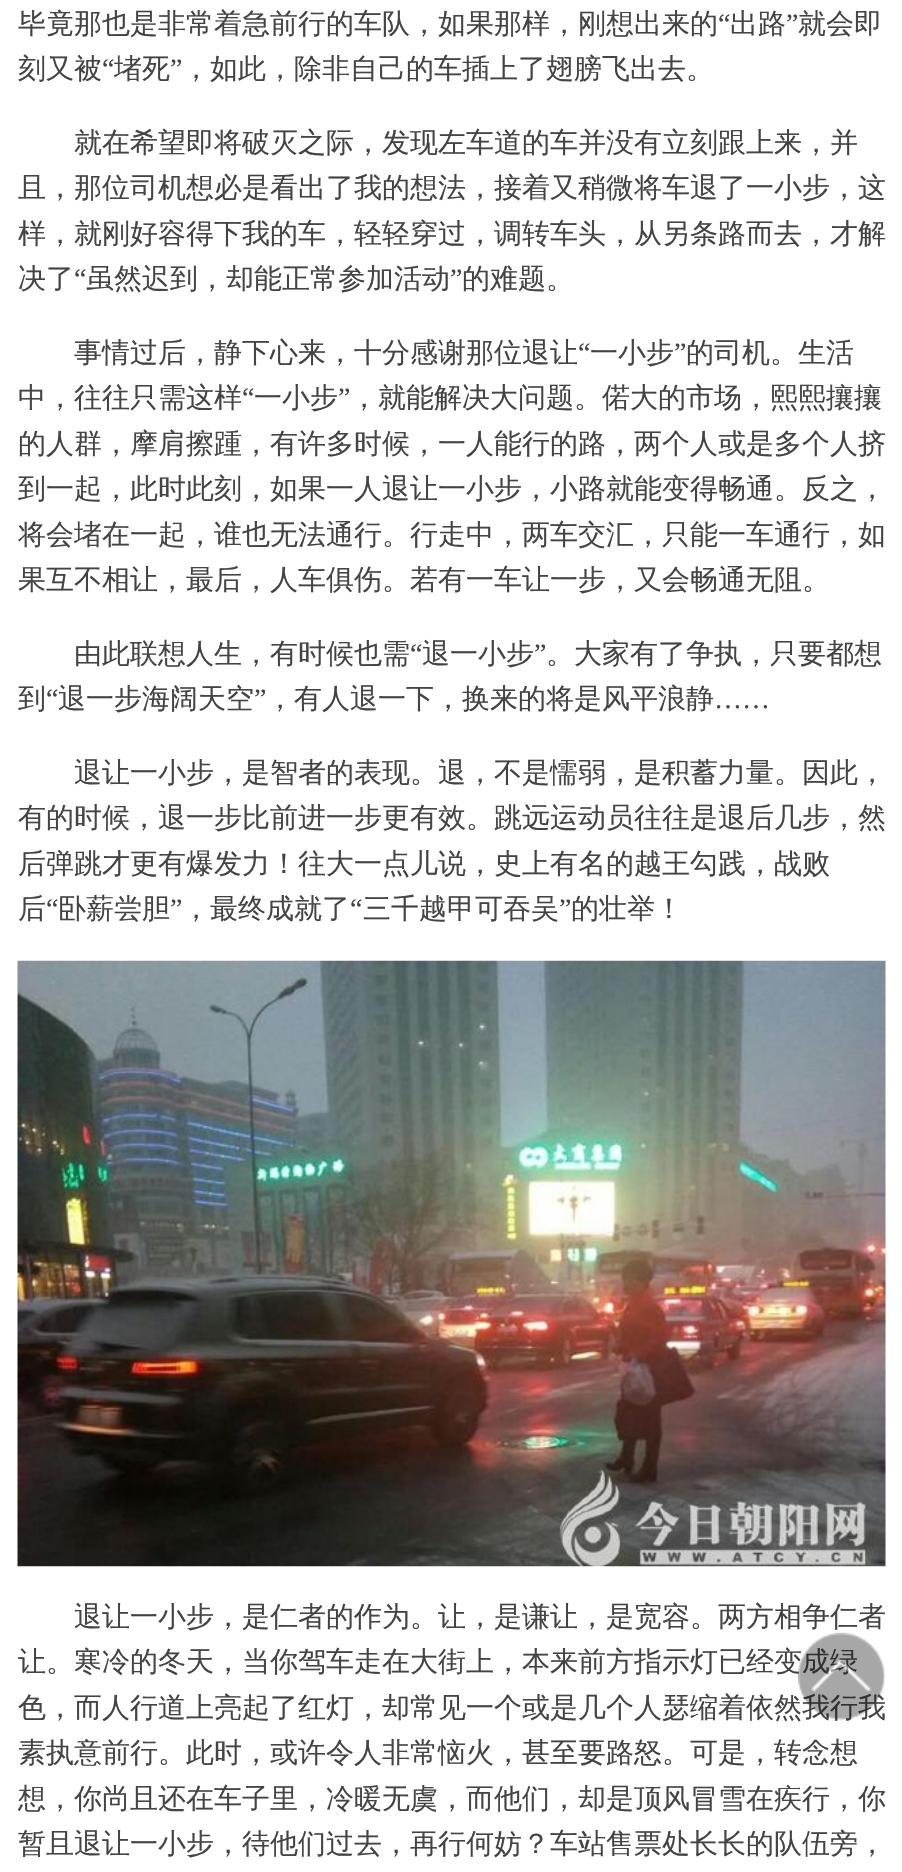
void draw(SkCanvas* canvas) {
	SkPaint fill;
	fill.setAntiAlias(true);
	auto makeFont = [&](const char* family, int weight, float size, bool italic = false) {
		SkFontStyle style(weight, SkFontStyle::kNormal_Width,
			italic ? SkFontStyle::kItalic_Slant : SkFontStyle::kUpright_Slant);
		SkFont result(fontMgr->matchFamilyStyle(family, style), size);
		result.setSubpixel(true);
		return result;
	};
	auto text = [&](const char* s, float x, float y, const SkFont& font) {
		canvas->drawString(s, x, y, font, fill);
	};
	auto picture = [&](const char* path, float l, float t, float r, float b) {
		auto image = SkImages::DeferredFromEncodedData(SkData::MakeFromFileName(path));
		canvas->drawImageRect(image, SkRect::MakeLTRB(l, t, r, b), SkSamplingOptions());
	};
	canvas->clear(0xFFFFFFFF);
	picture("image0.png", 17, 960, 886, 1567);
	auto font1 = makeFont("WenQuanYi Zen Hei", 500, 28);
	fill.setColor(0xFF444444);
	text("毕竟那也是非常着急前行的车队，如果那样，刚想出来的", 18, 33, font1);
	auto font2 = makeFont("Liberation Serif", 400, 28);
	text("“", 718, 33, font2);
	text("出路", 730, 33, font1);
	text("”", 786, 33, font2);
	text("就会即", 798, 33, font1);
	text("刻又被", 18, 78, font1);
	text("“", 102, 78, font2);
	text("堵死", 114, 78, font1);
	text("”", 170, 78, font2);
	text("，如此，除非自己的车插上了翅膀飞出去。", 182, 78, font1);
	text("就在希望即将破灭之际，发现左车道的车并没有立刻跟上来，并", 74, 152, font1);
	text("且，那位司机想必是看出了我的想法，接着又稍微将车退了一小步，这", 18, 197, font1);
	text("样，就刚好容得下我的车，轻轻穿过，调转车头，从另条路而去，才解", 18, 243, font1);
	text("决了", 18, 288, font1);
	text("“", 74, 288, font2);
	text("虽然迟到，却能正常参加活动", 86, 288, font1);
	text("”", 450, 288, font2);
	text("的难题。", 462, 288, font1);
	text("事情过后，静下心来，十分感谢那位退让", 74, 362, font1);
	text("“", 578, 362, font2);
	text("一小步", 590, 362, font1);
	text("”", 674, 362, font2);
	text("的司机。生活", 686, 362, font1);
	text("中，往往只需这样", 18, 407, font1);
	text("“", 242, 407, font2);
	text("一小步", 254, 407, font1);
	text("”", 338, 407, font2);
	text("，就能解决大问题。偌大的市场，熙熙攘攘", 350, 407, font1);
	text("的人群，摩肩擦踵，有许多时候，一人能行的路，两个人或是多个人挤", 18, 453, font1);
	text("到一起，此时此刻，如果一人退让一小步，小路就能变得畅通。反之，", 18, 498, font1);
	text("将会堵在一起，谁也无法通行。行走中，两车交汇，只能一车通行，如", 18, 544, font1);
	text("果互不相让，最后，人车俱伤。若有一车让一步，又会畅通无阻。", 18, 589, font1);
	text("由此联想人生，有时候也需", 74, 663, font1);
	text("“", 410, 663, font2);
	text("退一小步", 422, 663, font1);
	text("”", 534, 663, font2);
	text("。大家有了争执，只要都想", 546, 663, font1);
	text("到", 18, 708, font1);
	text("“", 46, 708, font2);
	text("退一步海阔天空", 58, 708, font1);
	text("”", 254, 708, font2);
	text("，有人退一下，换来的将是风平浪静", 266, 708, font1);
	text("……", 714, 708, font2);
	text("退让一小步，是智者的表现。退，不是懦弱，是积蓄力量。因此，", 74, 782, font1);
	text("有的时候，退一步比前进一步更有效。跳远运动员往往是退后几步，然", 18, 827, font1);
	text("后弹跳才更有爆发力！往大一点儿说，史上有名的越王勾践，战败", 18, 873, font1);
	text("后", 18, 918, font1);
	text("“", 46, 918, font2);
	text("卧薪尝胆", 58, 918, font1);
	text("”", 170, 918, font2);
	text("，最终成就了", 182, 918, font1);
	text("“", 350, 918, font2);
	text("三千越甲可吞吴", 363, 918, font1);
	text("”", 559, 918, font2);
	text("的壮举！", 571, 918, font1);
	text("退让一小步，是仁者的作为。让，是谦让，是宽容。两方相争仁者", 74, 1626, font1);
	text("让。寒冷的冬天，当你驾车走在大街上，本来前方指示灯已经变成绿", 18, 1671, font1);
	text("色，而人行道上亮起了红灯，却常见一个或是几个人瑟缩着依然我行我", 18, 1717, font1);
	text("素执意前行。此时，或许令人非常恼火，甚至要路怒。可是，转念想", 18, 1762, font1);
	text("想，你尚且还在车子里，冷暖无虞，而他们，却是顶风冒雪在疾行，你", 18, 1808, font1);
	text("暂且退让一小步，待他们过去，再行何妨？车站售票处长长的队伍旁，", 18, 1853, font1);
	picture("image1.png", 798, 1632, 886, 1721);
}
